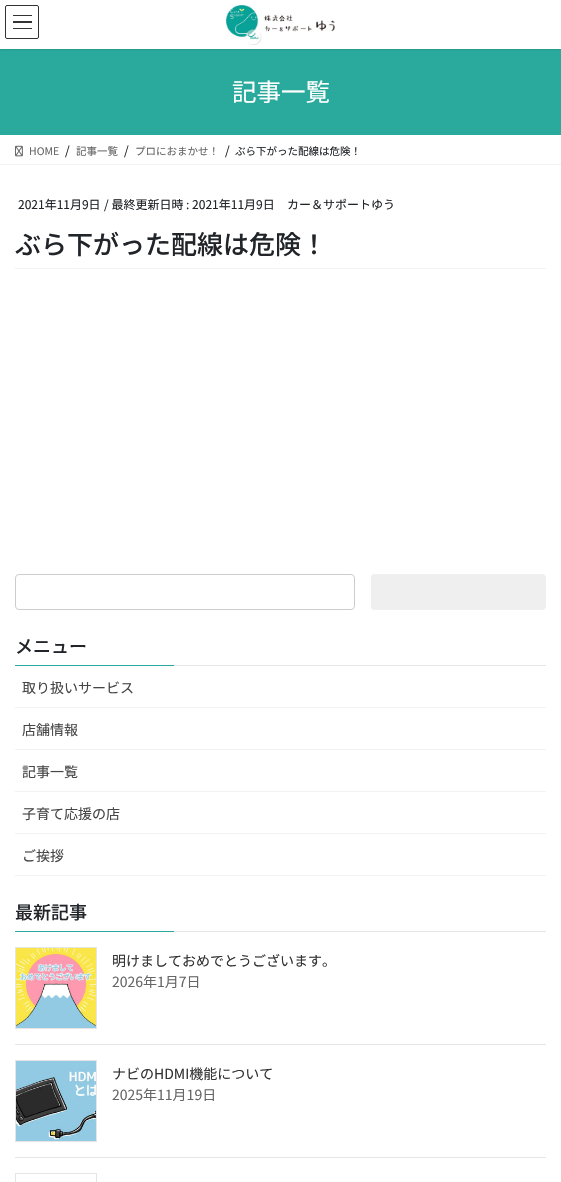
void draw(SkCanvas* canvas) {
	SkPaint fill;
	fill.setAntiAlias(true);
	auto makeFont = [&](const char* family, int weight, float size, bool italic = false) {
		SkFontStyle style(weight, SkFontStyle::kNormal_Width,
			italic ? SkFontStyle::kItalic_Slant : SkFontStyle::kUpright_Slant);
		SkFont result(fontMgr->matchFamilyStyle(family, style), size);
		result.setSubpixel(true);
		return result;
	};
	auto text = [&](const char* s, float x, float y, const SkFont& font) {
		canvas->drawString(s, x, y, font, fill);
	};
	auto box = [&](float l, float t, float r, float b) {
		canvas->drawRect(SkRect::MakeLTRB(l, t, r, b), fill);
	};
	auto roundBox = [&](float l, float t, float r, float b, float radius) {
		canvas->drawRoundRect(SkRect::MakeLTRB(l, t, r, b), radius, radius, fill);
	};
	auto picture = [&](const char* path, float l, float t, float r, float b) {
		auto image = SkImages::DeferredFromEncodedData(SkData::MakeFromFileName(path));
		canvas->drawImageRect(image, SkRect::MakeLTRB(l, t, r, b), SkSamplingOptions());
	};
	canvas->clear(0xFFFFFFFF);
	fill.setColor(0xFF29AA9C);
	box(0, 49, 561, 135);
	canvas->save();
	canvas->clipRect(SkRect::MakeLTRB(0, 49, 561, 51));
	fill.setColor(0x1A000000);
	fill.setMaskFilter(SkMaskFilter::MakeBlur(kNormal_SkBlurStyle, 1.5f));
	canvas->drawRect(SkRect::MakeLTRB(0, 1, 561, 50), fill);
	fill.setMaskFilter(nullptr);
	canvas->restore();
	picture("image0.png", 226, 5, 335, 45);
	fill.setColor(0xFF333333);
	box(13, 15, 32, 16);
	box(13, 21, 32, 23);
	box(13, 28, 32, 29);
	fill.setStyle(SkPaint::kStroke_Style);
	fill.setStrokeWidth(1);
	canvas->drawRoundRect(SkRect::MakeLTRB(5.5f, 5.5f, 38.5f, 38.5f), 1.5f, 1.5f, fill);
	fill.setStyle(SkPaint::kFill_Style);
	fill.setColor(0xFFF2F2F2);
	box(0, 164, 561, 165);
	picture("image1.png", 15, 145, 23, 157);
	box(15, 268, 546, 269);
	fill.setStyle(SkPaint::kStroke_Style);
	fill.setColor(0xFFCCCCCC);
	canvas->drawRoundRect(SkRect::MakeLTRB(15.5f, 574.5f, 354.5f, 609.5f), 3.5f, 3.5f, fill);
	fill.setStyle(SkPaint::kFill_Style);
	fill.setColor(0xFFEFEFEF);
	roundBox(371, 574, 546, 610, 4);
	fill.setColor(0xFFE6E6E6);
	box(174, 665, 546, 666);
	fill.setColor(0xFF29AA9C);
	box(15, 665, 174, 666);
	fill.setColor(0xFFF2F2F2);
	box(15, 707, 546, 708);
	box(15, 749, 546, 750);
	box(15, 791, 546, 792);
	box(15, 833, 546, 834);
	box(15, 875, 546, 876);
	fill.setColor(0xFFE6E6E6);
	box(174, 931, 546, 932);
	fill.setColor(0xFF29AA9C);
	box(15, 931, 174, 932);
	fill.setColor(0xFFE5E5E5);
	box(15, 1044, 546, 1045);
	fill.setStyle(SkPaint::kStroke_Style);
	canvas->drawRect(SkRect::MakeLTRB(15.5f, 947.5f, 96.5f, 1028.5f), fill);
	picture("image2.png", 16, 948, 96, 1028);
	fill.setStyle(SkPaint::kFill_Style);
	box(15, 1157, 546, 1158);
	fill.setStyle(SkPaint::kStroke_Style);
	canvas->drawRect(SkRect::MakeLTRB(15.5f, 1060.5f, 96.5f, 1141.5f), fill);
	picture("image3.png", 16, 1061, 96, 1141);
	canvas->drawRect(SkRect::MakeLTRB(15.5f, 1173.5f, 96.5f, 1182.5f), fill);
	auto font1 = makeFont("Noto Sans JP", 400, 24.5f);
	fill.setStyle(SkPaint::kFill_Style);
	fill.setColor(0xFFFFFFFF);
	text("記事一覧", 232, 101, font1);
	auto font2 = makeFont("Noto Sans JP", 400, 10.5f);
	fill.setColor(0xFF666666);
	text("HOME", 29, 155, font2);
	auto font3 = makeFont("Noto Sans JP", 400, 12);
	fill.setColor(0xFF212529);
	text("/", 65, 155, font3);
	fill.setColor(0xFF666666);
	text("記事一覧", 76, 155, font2);
	fill.setColor(0xFF212529);
	text("/", 124, 155, font3);
	fill.setColor(0xFF666666);
	text("プロにおまかせ！", 135, 155, font2);
	fill.setColor(0xFF212529);
	text("/", 225, 155, font3);
	text("ぶら下がった配線は危険！", 235, 155, font2);
	text("2021年11月9日", 18, 209, font3);
	text("/ 最終更新日時 : 2021年11月9日", 104, 209, font3);
	text("カー＆サポートゆう", 287, 209, font3);
	auto font4 = makeFont("Noto Sans JP", 500, 26);
	text("ぶら下がった配線は危険！", 15, 254, font4);
	auto font5 = makeFont("Noto Sans JP", 500, 18);
	text("メニュー", 15, 653, font5);
	auto font6 = makeFont("Noto Sans JP", 400, 14);
	fill.setColor(0xFF464646);
	text("取り扱いサービス", 22, 693, font6);
	text("店舗情報", 22, 735, font6);
	text("記事一覧", 22, 777, font6);
	text("子育て応援の店", 22, 819, font6);
	text("ご挨拶", 22, 861, font6);
	fill.setColor(0xFF212529);
	text("最新記事", 15, 919, font5);
	fill.setColor(0xFF333333);
	text("明けましておめでとうございます。", 112, 966, font6);
	fill.setColor(0xFF666666);
	text("2026年1月7日", 112, 987, font6);
	fill.setColor(0xFF333333);
	text("ナビのHDMI機能について", 112, 1079, font6);
	fill.setColor(0xFF666666);
	text("2025年11月19日", 112, 1100, font6);
}
